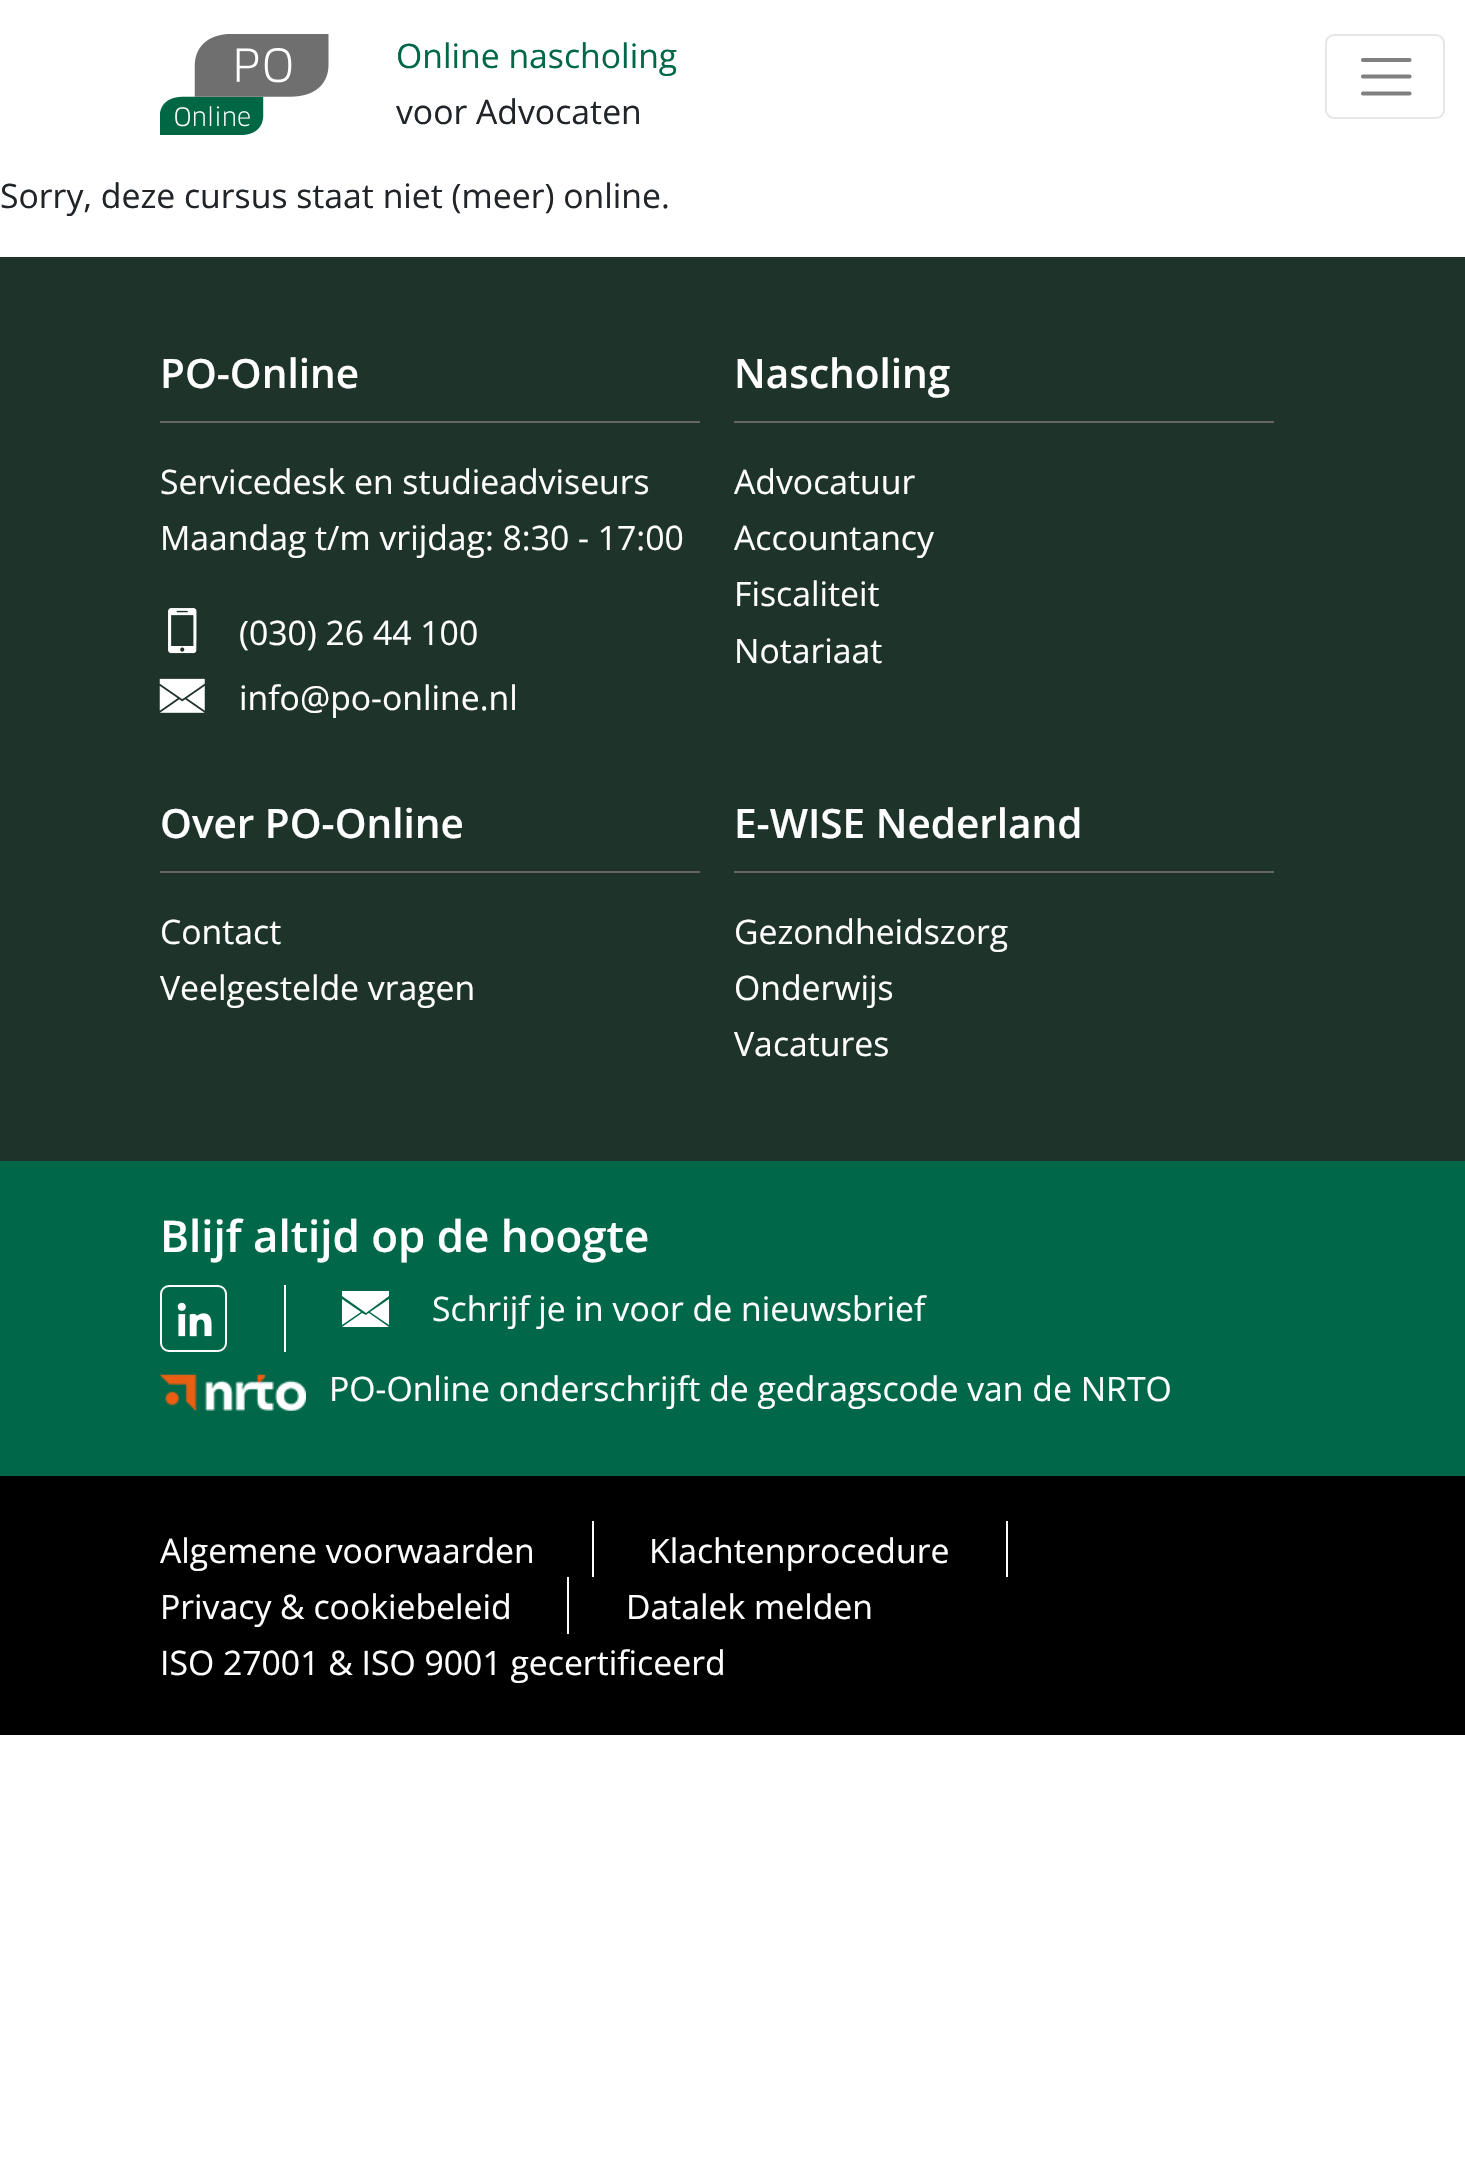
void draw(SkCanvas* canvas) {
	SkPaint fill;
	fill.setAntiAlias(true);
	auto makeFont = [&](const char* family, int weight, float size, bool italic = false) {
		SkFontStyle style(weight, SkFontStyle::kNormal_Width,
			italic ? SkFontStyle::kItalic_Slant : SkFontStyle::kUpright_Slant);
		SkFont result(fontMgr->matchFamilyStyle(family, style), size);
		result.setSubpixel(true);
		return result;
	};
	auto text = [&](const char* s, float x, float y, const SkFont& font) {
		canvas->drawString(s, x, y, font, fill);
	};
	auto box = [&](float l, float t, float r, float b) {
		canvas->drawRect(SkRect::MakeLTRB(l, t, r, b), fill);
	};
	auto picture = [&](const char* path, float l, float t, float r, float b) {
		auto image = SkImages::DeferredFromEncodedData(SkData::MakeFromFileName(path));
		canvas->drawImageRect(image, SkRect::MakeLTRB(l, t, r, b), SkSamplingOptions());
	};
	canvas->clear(0xFFFFFFFF);
	picture("image0.png", 160, 34, 329, 135);
	fill.setStyle(SkPaint::kStroke_Style);
	fill.setStrokeWidth(2);
	fill.setColor(0xFFE6E6E6);
	canvas->drawRoundRect(SkRect::MakeLTRB(1326, 35, 1444, 118), 8, 8, fill);
	fill.setStrokeWidth(4.2f);
	fill.setStrokeCap(SkPaint::kRound_Cap);
	fill.setColor(0xFF808080);
	canvas->drawPath(SkPathBuilder().moveTo(1363, 60).lineTo(1409.5f, 60).moveTo(1363, 76.5f).lineTo(1409.5f, 76.5f).moveTo(1363, 93.5f).lineTo(1409.5f, 93.5f).detach(), fill);
	fill.setStyle(SkPaint::kFill_Style);
	fill.setColor(0xFF1E3329);
	box(0, 257, 1465, 1161);
	fill.setColor(0xFF666666);
	box(160, 421, 700, 423);
	picture("image1.png", 168, 608, 197, 654);
	picture("image2.png", 159, 678, 205, 713);
	box(734, 421, 1274, 423);
	box(160, 871, 700, 873);
	box(734, 871, 1274, 873);
	fill.setColor(0xFF006848);
	box(0, 1161, 1465, 1476);
	fill.setColor(0xFFFFFFFF);
	box(284, 1285, 286, 1352);
	fill.setStyle(SkPaint::kStroke_Style);
	fill.setStrokeWidth(2);
	fill.setStrokeCap(SkPaint::kButt_Cap);
	canvas->drawRoundRect(SkRect::MakeLTRB(161, 1286, 226, 1351), 8, 8, fill);
	picture("image3.png", 177, 1302, 212, 1337);
	fill.setStyle(SkPaint::kFill_Style);
	canvas->drawPath(SkPathBuilder().moveTo(370, 1312).lineTo(389, 1325).lineTo(389, 1299).close().moveTo(342, 1325).lineTo(361, 1312).lineTo(342, 1299).close().moveTo(367, 1314).lineTo(366, 1315).lineTo(362, 1313).lineTo(342, 1327).lineTo(389, 1327).lineTo(369, 1313).close().moveTo(366, 1313).lineTo(389, 1296).lineTo(389, 1291).lineTo(342, 1291).lineTo(342, 1296).close().detach(), fill);
	picture("image4.png", 159, 1374, 306, 1411);
	fill.setColor(0xFF000000);
	box(0, 1476, 1465, 1735);
	fill.setColor(0xFFFFFFFF);
	box(592, 1521, 594, 1577);
	box(1006, 1521, 1008, 1577);
	box(567, 1577, 569, 1634);
	auto font1 = makeFont("Open Sans", 400, 33.75f);
	fill.setColor(0xFF006848);
	text("Online nascholing", 396, 68, font1);
	fill.setColor(0xFF212529);
	text("voor Advocaten", 396, 124, font1);
	text("Sorry, deze cursus staat niet (meer) online.", 0, 208, font1);
	auto font2 = makeFont("Open Sans", 600, 40.5f);
	fill.setColor(0xFFFFFFFF);
	text("PO-Online", 160, 388, font2);
	text("Servicedesk en studieadviseurs", 160, 494, font1);
	text("Maandag t/m vrijdag: 8:30 - 17:00", 160, 550, font1);
	text("(030) 26 44 100", 239, 645, font1);
	text("info@po-online.nl", 239, 710, font1);
	text("Nascholing", 734, 388, font2);
	text("Advocatuur", 734, 494, font1);
	text("Accountancy", 734, 550, font1);
	text("Fiscaliteit", 734, 606, font1);
	text("Notariaat", 734, 663, font1);
	text("Over PO-Online", 160, 838, font2);
	text("Contact", 160, 944, font1);
	text("Veelgestelde vragen", 160, 1000, font1);
	text("E-WISE Nederland", 734, 838, font2);
	text("Gezondheidszorg", 734, 944, font1);
	text("Onderwijs", 734, 1000, font1);
	text("Vacatures", 734, 1056, font1);
	auto font3 = makeFont("Open Sans", 600, 43.9f);
	text("Blijf altijd op de hoogte", 160, 1252, font3);
	text("Schrijf je in voor de nieuwsbrief", 432, 1321, font1);
	text("PO-Online onderschrijft de gedragscode van de NRTO", 329, 1401, font1);
	text("Algemene voorwaarden", 160, 1563, font1);
	text("Klachtenprocedure", 649, 1563, font1);
	text("Privacy & cookiebeleid", 160, 1619, font1);
	text("Datalek melden", 626, 1619, font1);
	text("ISO 27001 & ISO 9001 gecertificeerd", 160, 1675, font1);
}
